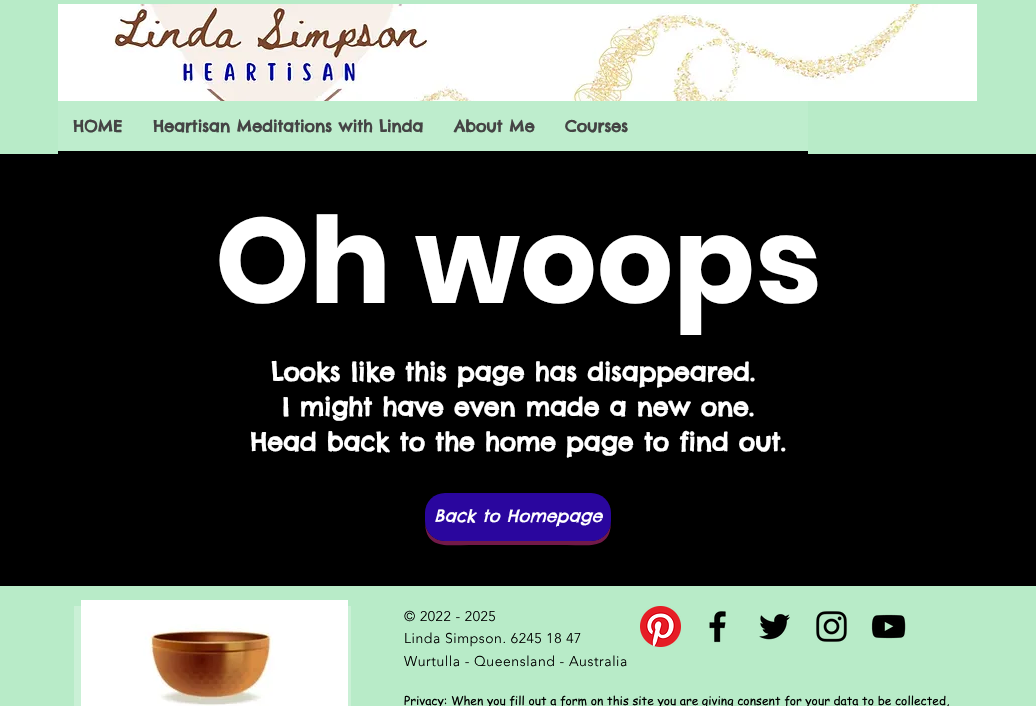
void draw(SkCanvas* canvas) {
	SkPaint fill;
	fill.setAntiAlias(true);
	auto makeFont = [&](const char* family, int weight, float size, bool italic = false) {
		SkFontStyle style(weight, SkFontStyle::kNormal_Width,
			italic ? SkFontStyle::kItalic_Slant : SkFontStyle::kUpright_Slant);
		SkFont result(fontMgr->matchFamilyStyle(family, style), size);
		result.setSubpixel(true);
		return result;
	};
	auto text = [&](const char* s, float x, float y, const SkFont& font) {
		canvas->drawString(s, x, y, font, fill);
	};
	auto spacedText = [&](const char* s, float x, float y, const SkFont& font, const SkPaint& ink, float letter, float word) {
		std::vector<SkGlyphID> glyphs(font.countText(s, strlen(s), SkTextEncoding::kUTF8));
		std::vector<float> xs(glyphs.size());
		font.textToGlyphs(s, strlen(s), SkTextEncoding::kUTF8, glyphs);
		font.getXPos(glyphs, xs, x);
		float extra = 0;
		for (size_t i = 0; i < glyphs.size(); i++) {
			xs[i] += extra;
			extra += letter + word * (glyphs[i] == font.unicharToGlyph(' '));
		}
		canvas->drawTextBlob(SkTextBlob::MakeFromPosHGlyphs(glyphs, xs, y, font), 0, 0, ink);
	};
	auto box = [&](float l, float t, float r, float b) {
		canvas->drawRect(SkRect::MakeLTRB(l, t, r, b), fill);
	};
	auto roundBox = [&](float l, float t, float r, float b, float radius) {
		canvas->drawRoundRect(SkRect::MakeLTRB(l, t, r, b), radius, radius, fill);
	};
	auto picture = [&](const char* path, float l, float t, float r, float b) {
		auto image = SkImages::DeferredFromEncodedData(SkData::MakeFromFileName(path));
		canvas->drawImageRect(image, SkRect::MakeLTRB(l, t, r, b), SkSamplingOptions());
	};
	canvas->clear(0xFFB8EBC8);
	picture("image0.png", 58, 4, 977, 101);
	fill.setColor(0xFF000000);
	box(58, 151, 808, 154);
	fill.setColor(0xFFBEEDCD);
	box(58, 101, 808, 151);
	fill.setColor(0xFF000000);
	box(0, 154, 1036, 586);
	fill.setColor(0xFF721949);
	canvas->drawPath(SkPathBuilder().moveTo(425, 521).cubicTo(425, 550, 447, 545, 469, 545).lineTo(567, 545).cubicTo(589, 545, 611, 550, 611, 521).cubicTo(611, 532, 602, 541, 591, 541).lineTo(445, 541).cubicTo(434, 541, 425, 532, 425, 521).close().detach(), fill);
	fill.setColor(0xDE3007B6);
	roundBox(425, 493, 611, 541, 20);
	fill.setColor(0xFFCAF0D6);
	box(74, 606, 351, 706);
	picture("image1.png", 81, 600, 348, 706);
	picture("image2.png", 640, 606, 681, 647);
	picture("image3.png", 709, 611, 726, 643);
	picture("image4.png", 759, 614, 790, 640);
	picture("image5.png", 816, 611, 847, 642);
	picture("image6.png", 871, 614, 906, 639);
	auto font1 = makeFont("Chelsea Market", 700, 16);
	fill.setColor(0xFF444444);
	text("HOME", 73, 132, font1);
	text("Heartisan Meditations with Linda", 153, 132, font1);
	text("About Me", 454, 132, font1);
	text("Courses", 565, 132, font1);
	auto font2 = makeFont("Poppins", 700, 120);
	fill.setColor(0xFFFFFFFF);
	text("Oh woops", 215, 303, font2);
	auto font3 = makeFont("Chelsea Market", 700, 25);
	text("Looks like this page has disappeared.", 271, 381, font3);
	text("I might have even made a new one.", 282, 416, font3);
	text("Head back to the home page to find out.", 250, 451, font3);
	auto font4 = makeFont("Chelsea Market", 400, 17, true);
	text("Back to Homepage", 434, 522, font4);
	auto font5 = makeFont("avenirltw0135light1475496", 300, 14);
	fill.setColor(0xFF000000);
	spacedText("© 2022 - 2025", 404, 621, font5, fill, 0.55f, 0);
	spacedText("Linda Simpson. 6245 18 47", 404, 643, font5, fill, 0.55f, 0);
	spacedText("Wurtulla - Queensland - Australia", 404, 666, font5, fill, 0.55f, 0);
	auto font6 = makeFont("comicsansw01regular", 400, 12);
	text("Privacy: When you fill out a form on this site you are giving consent for your data to be collected,", 404, 705, font6);
}
